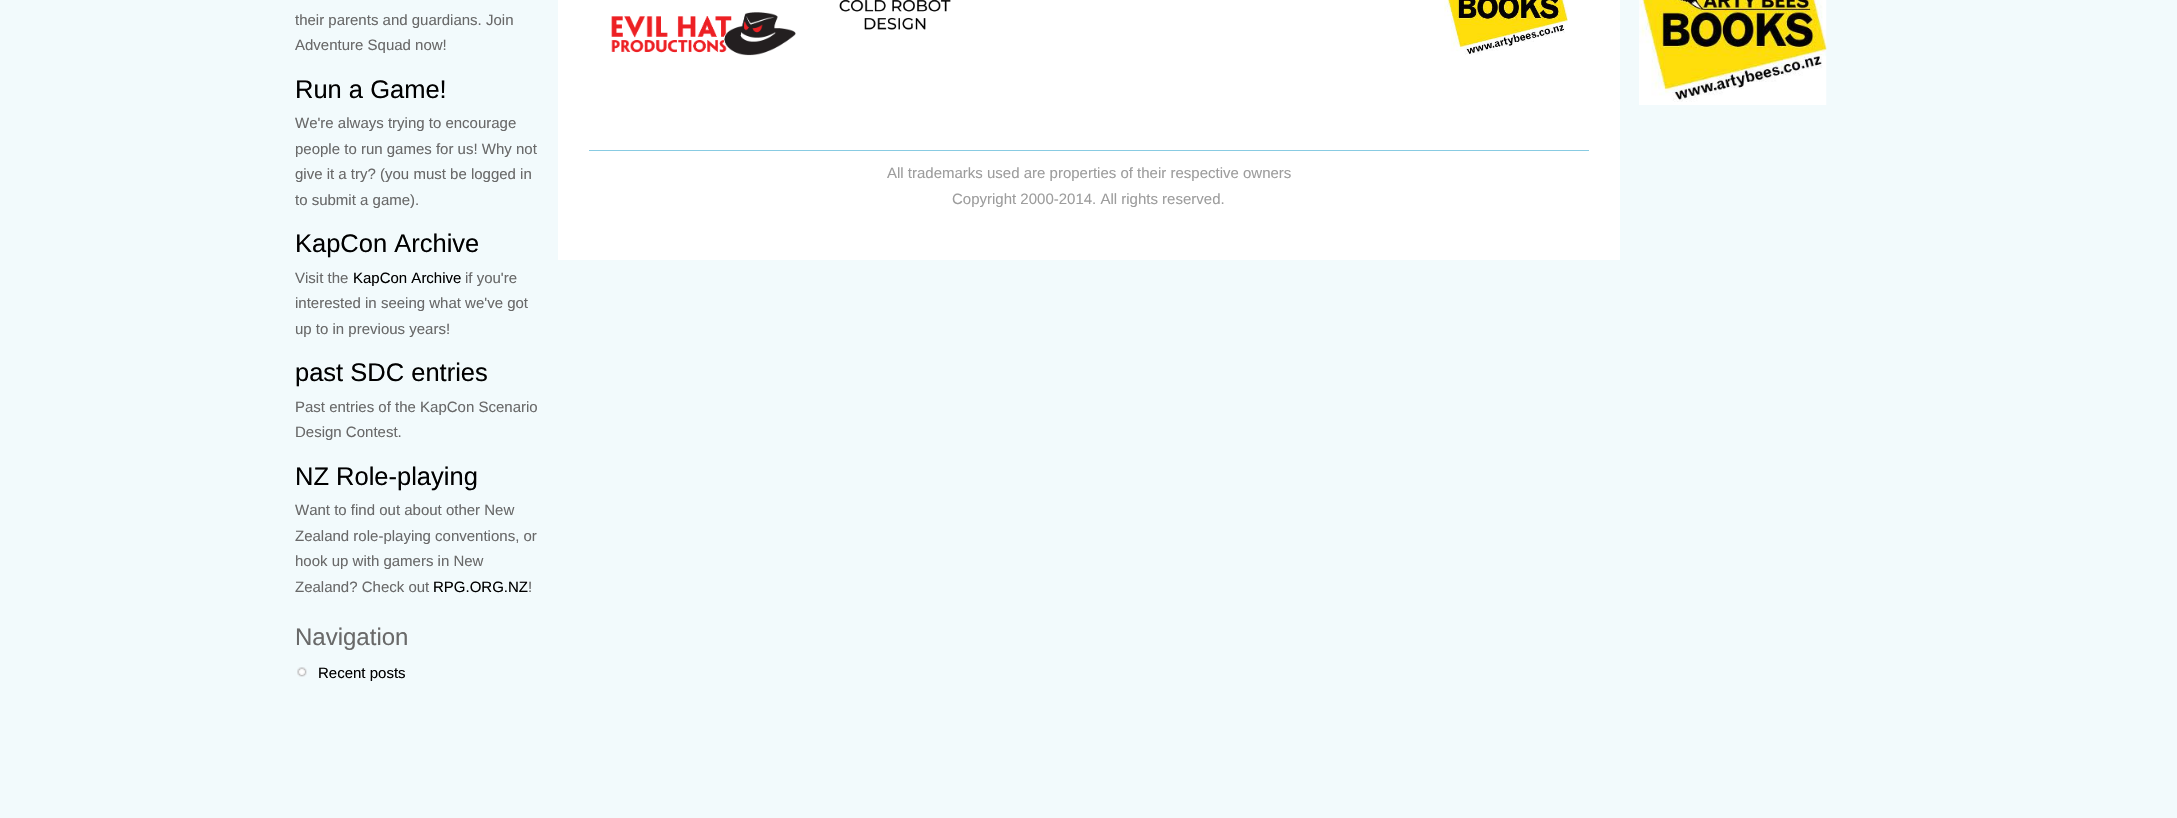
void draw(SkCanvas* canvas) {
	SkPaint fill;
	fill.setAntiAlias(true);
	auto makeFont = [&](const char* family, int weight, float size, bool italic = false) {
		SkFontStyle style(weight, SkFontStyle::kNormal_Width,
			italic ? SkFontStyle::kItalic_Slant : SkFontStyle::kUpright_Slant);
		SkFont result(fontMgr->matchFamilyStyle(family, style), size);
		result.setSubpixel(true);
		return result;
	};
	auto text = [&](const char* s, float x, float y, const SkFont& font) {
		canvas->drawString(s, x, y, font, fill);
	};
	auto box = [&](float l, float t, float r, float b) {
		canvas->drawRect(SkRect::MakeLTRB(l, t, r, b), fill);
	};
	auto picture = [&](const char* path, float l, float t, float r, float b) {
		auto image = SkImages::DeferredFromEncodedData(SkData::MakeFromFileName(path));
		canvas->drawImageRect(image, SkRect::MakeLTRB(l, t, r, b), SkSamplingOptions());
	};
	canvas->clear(0xFFF2FAFC);
	picture("image0.png", 297, 667, 307, 677);
	fill.setColor(0xFFFFFFFF);
	box(558, 0, 1620, 260);
	picture("image1.png", 611, 12, 796, 56);
	picture("image2.png", 839, 0, 951, 30);
	picture("image3.png", 1444, 0, 1568, 55);
	fill.setColor(0xFF88CBE2);
	box(589, 150, 1589, 151);
	picture("image4.png", 1639, 0, 1827, 105);
	auto font1 = makeFont("Liberation Sans", 400, 15);
	fill.setColor(0xFF696969);
	text("their parents and guardians. Join", 295, 25, font1);
	text("Adventure Squad now!", 295, 50, font1);
	auto font2 = makeFont("Liberation Sans", 400, 25.5f);
	fill.setColor(0xFF000000);
	text("Run a Game!", 295, 98, font2);
	fill.setColor(0xFF696969);
	text("We're always trying to encourage", 295, 128, font1);
	text("people to run games for us! Why not", 295, 154, font1);
	text("give it a try? (you must be logged in", 295, 179, font1);
	text("to submit a game).", 295, 205, font1);
	fill.setColor(0xFF000000);
	text("KapCon Archive", 295, 252, font2);
	fill.setColor(0xFF696969);
	text("Visit the", 295, 283, font1);
	fill.setColor(0xFF000000);
	text("KapCon Archive", 353, 283, font1);
	fill.setColor(0xFF696969);
	text("if you're", 465, 283, font1);
	text("interested in seeing what we've got", 295, 308, font1);
	text("up to in previous years!", 295, 334, font1);
	fill.setColor(0xFF000000);
	text("past SDC entries", 295, 381, font2);
	fill.setColor(0xFF696969);
	text("Past entries of the KapCon Scenario", 295, 412, font1);
	text("Design Contest.", 295, 437, font1);
	fill.setColor(0xFF000000);
	text("NZ Role-playing", 295, 485, font2);
	fill.setColor(0xFF696969);
	text("Want to find out about other New", 295, 515, font1);
	text("Zealand role-playing conventions, or", 295, 541, font1);
	text("hook up with gamers in New", 295, 566, font1);
	text("Zealand? Check out", 295, 592, font1);
	fill.setColor(0xFF000000);
	text("RPG.ORG.NZ", 433, 592, font1);
	fill.setColor(0xFF696969);
	text("!", 528, 592, font1);
	auto font3 = makeFont("Liberation Sans", 400, 24);
	text("Navigation", 295, 645, font3);
	fill.setColor(0xFF000000);
	text("Recent posts", 318, 678, font1);
	fill.setColor(0xFF9D9D9D);
	text("All trademarks used are properties of their respective owners", 887, 178, font1);
	text("Copyright 2000-2014. All rights reserved.", 952, 204, font1);
}
